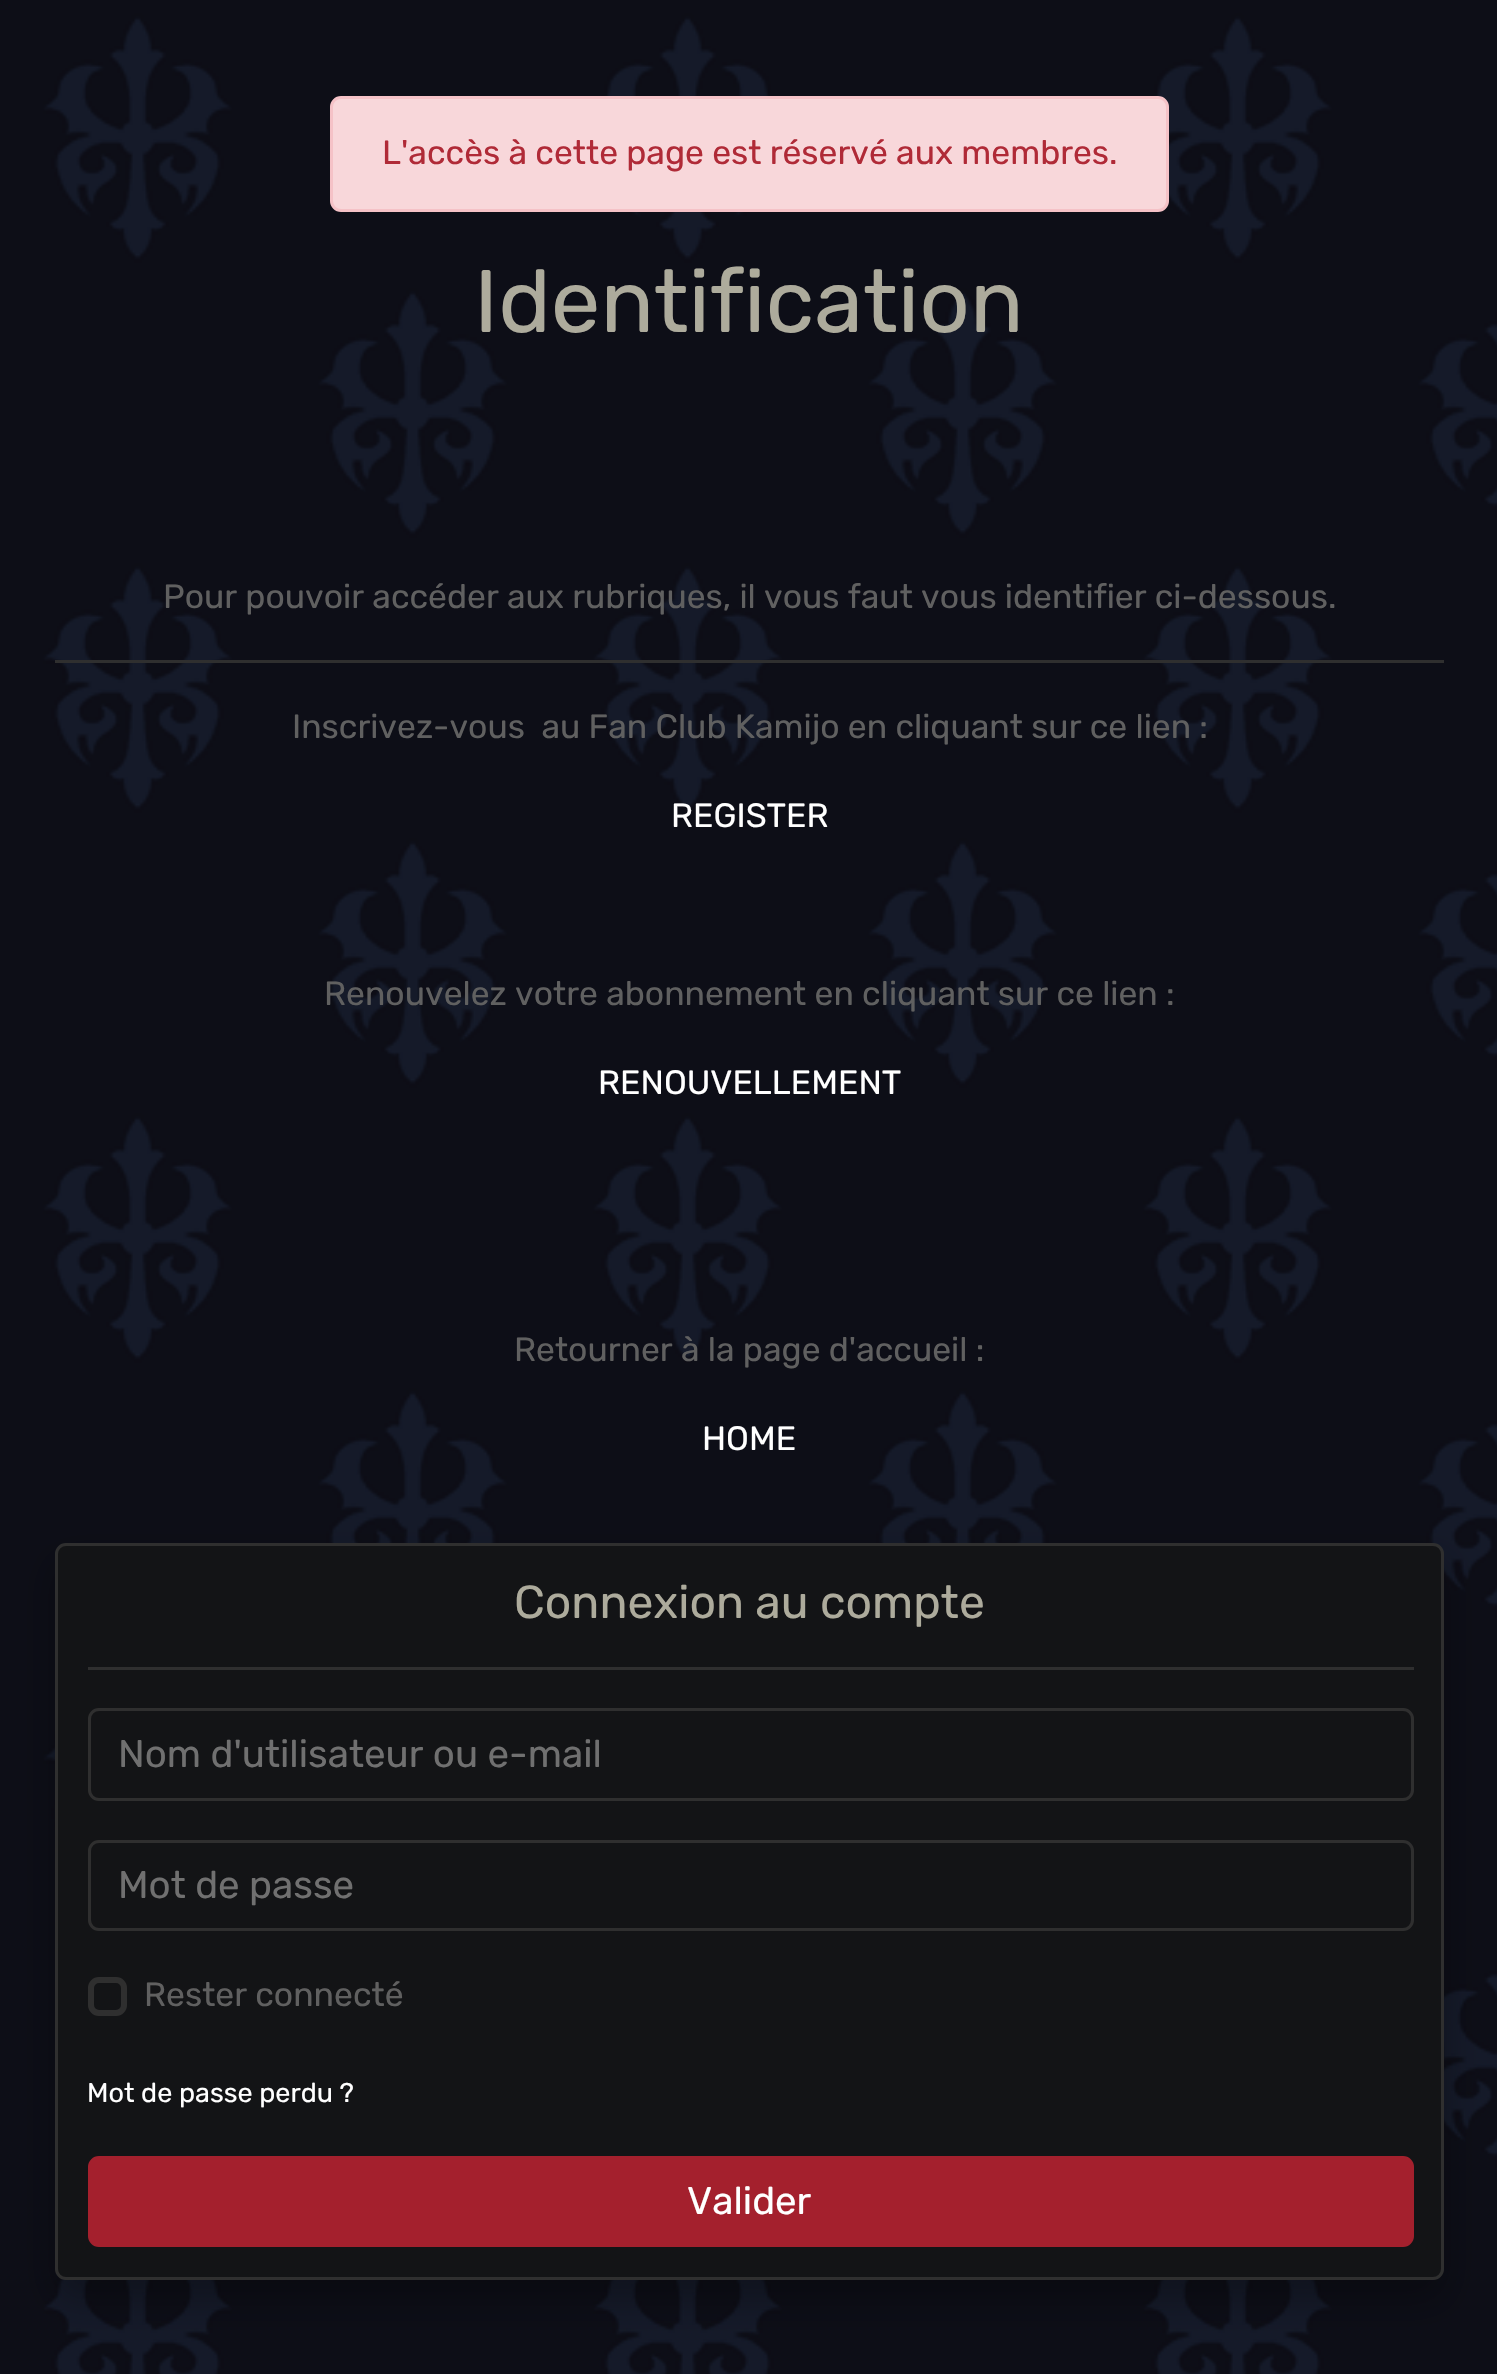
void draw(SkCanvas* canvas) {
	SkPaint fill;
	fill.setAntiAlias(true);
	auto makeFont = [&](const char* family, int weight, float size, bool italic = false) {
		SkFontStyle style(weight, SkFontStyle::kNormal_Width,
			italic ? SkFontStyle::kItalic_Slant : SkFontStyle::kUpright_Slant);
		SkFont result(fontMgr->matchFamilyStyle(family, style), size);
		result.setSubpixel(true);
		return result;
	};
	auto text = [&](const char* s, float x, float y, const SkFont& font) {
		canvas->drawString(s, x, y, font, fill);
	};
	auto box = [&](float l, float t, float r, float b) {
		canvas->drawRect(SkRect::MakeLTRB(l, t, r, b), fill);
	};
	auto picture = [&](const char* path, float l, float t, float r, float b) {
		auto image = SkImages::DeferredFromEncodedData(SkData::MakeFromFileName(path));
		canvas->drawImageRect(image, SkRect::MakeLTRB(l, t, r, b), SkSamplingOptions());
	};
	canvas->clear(0xFFFFFFFF);
	picture("image0.png", 0, 0, 1497, 2374);
	fill.setColor(0xFFF8D7DA);
	canvas->drawRoundRect(SkRect::MakeLTRB(331.5f, 97.5f, 1167.5f, 210.5f), 9.5f, 9.5f, fill);
	fill.setStyle(SkPaint::kStroke_Style);
	fill.setStrokeWidth(3);
	fill.setColor(0xFFF5C2C7);
	canvas->drawRoundRect(SkRect::MakeLTRB(331.5f, 97.5f, 1167.5f, 210.5f), 9.5f, 9.5f, fill);
	fill.setStyle(SkPaint::kFill_Style);
	fill.setColor(0xFF2F2F2F);
	box(55, 660, 1444, 663);
	fill.setColor(0x4D000000);
	fill.setMaskFilter(SkMaskFilter::MakeBlur(kNormal_SkBlurStyle, 19));
	canvas->drawRoundRect(SkRect::MakeLTRB(55, 1562, 1444, 2299), 11, 11, fill);
	fill.setMaskFilter(nullptr);
	fill.setColor(0xFF131416);
	canvas->drawRoundRect(SkRect::MakeLTRB(56.5f, 1544.5f, 1442.5f, 2278.5f), 9.5f, 9.5f, fill);
	fill.setStyle(SkPaint::kStroke_Style);
	fill.setColor(0xFF2F2F2F);
	canvas->drawRoundRect(SkRect::MakeLTRB(56.5f, 1544.5f, 1442.5f, 2278.5f), 9.5f, 9.5f, fill);
	fill.setStyle(SkPaint::kFill_Style);
	box(88, 1667, 1414, 1670);
	fill.setStyle(SkPaint::kStroke_Style);
	canvas->drawRoundRect(SkRect::MakeLTRB(89.5f, 1709.5f, 1412.5f, 1799.5f), 9.5f, 9.5f, fill);
	canvas->drawRoundRect(SkRect::MakeLTRB(89.5f, 1841.5f, 1412.5f, 1929.5f), 9.5f, 9.5f, fill);
	fill.setStrokeWidth(6);
	canvas->drawRoundRect(SkRect::MakeLTRB(91, 1980, 124, 2013), 8, 8, fill);
	fill.setStyle(SkPaint::kFill_Style);
	fill.setColor(0xFFA4202D);
	canvas->drawRoundRect(SkRect::MakeLTRB(89.5f, 2157.5f, 1412.5f, 2245.5f), 9.5f, 9.5f, fill);
	fill.setStyle(SkPaint::kStroke_Style);
	fill.setStrokeWidth(3);
	canvas->drawRoundRect(SkRect::MakeLTRB(89.5f, 2157.5f, 1412.5f, 2245.5f), 9.5f, 9.5f, fill);
	auto font1 = makeFont("Rubik", 400, 33.7f);
	fill.setStyle(SkPaint::kFill_Style);
	fill.setColor(0xFFB02A37);
	text("L'accès à cette page est réservé aux membres.", 382, 164, font1);
	auto font2 = makeFont("Rubik", 400, 88.5f);
	fill.setColor(0xFFADAB9C);
	text("Identification", 474, 332, font2);
	fill.setColor(0xFF606060);
	text("Pour pouvoir accéder aux rubriques, il vous faut vous identifier ci-dessous.", 163, 608, font1);
	text("Inscrivez-vous  au Fan Club Kamijo en cliquant sur ce lien :", 292, 738, font1);
	fill.setColor(0xFFFFFFFF);
	text("REGISTER", 671, 827, font1);
	fill.setColor(0xFF606060);
	text("Renouvelez votre abonnement en cliquant sur ce lien :", 324, 1005, font1);
	fill.setColor(0xFFFFFFFF);
	text("RENOUVELLEMENT", 598, 1094, font1);
	fill.setColor(0xFF606060);
	text("Retourner à la page d'accueil :", 514, 1361, font1);
	fill.setColor(0xFFFFFFFF);
	text("HOME", 702, 1450, font1);
	auto font3 = makeFont("Rubik", 400, 46.25f);
	fill.setColor(0xFFADAB9C);
	text("Connexion au compte", 514, 1618, font3);
	auto font4 = makeFont("Rubik", 400, 38.5f);
	fill.setColor(0xFF707070);
	text("Nom d'utilisateur ou e-mail", 118, 1767, font4);
	text("Mot de passe", 118, 1898, font4);
	fill.setColor(0xFF606060);
	text("Rester connecté", 144, 2006, font1);
	auto font5 = makeFont("Rubik", 400, 27);
	fill.setColor(0xFFFFFFFF);
	text("Mot de passe perdu ?", 87, 2102, font5);
	text("Valider", 687, 2214, font4);
}
